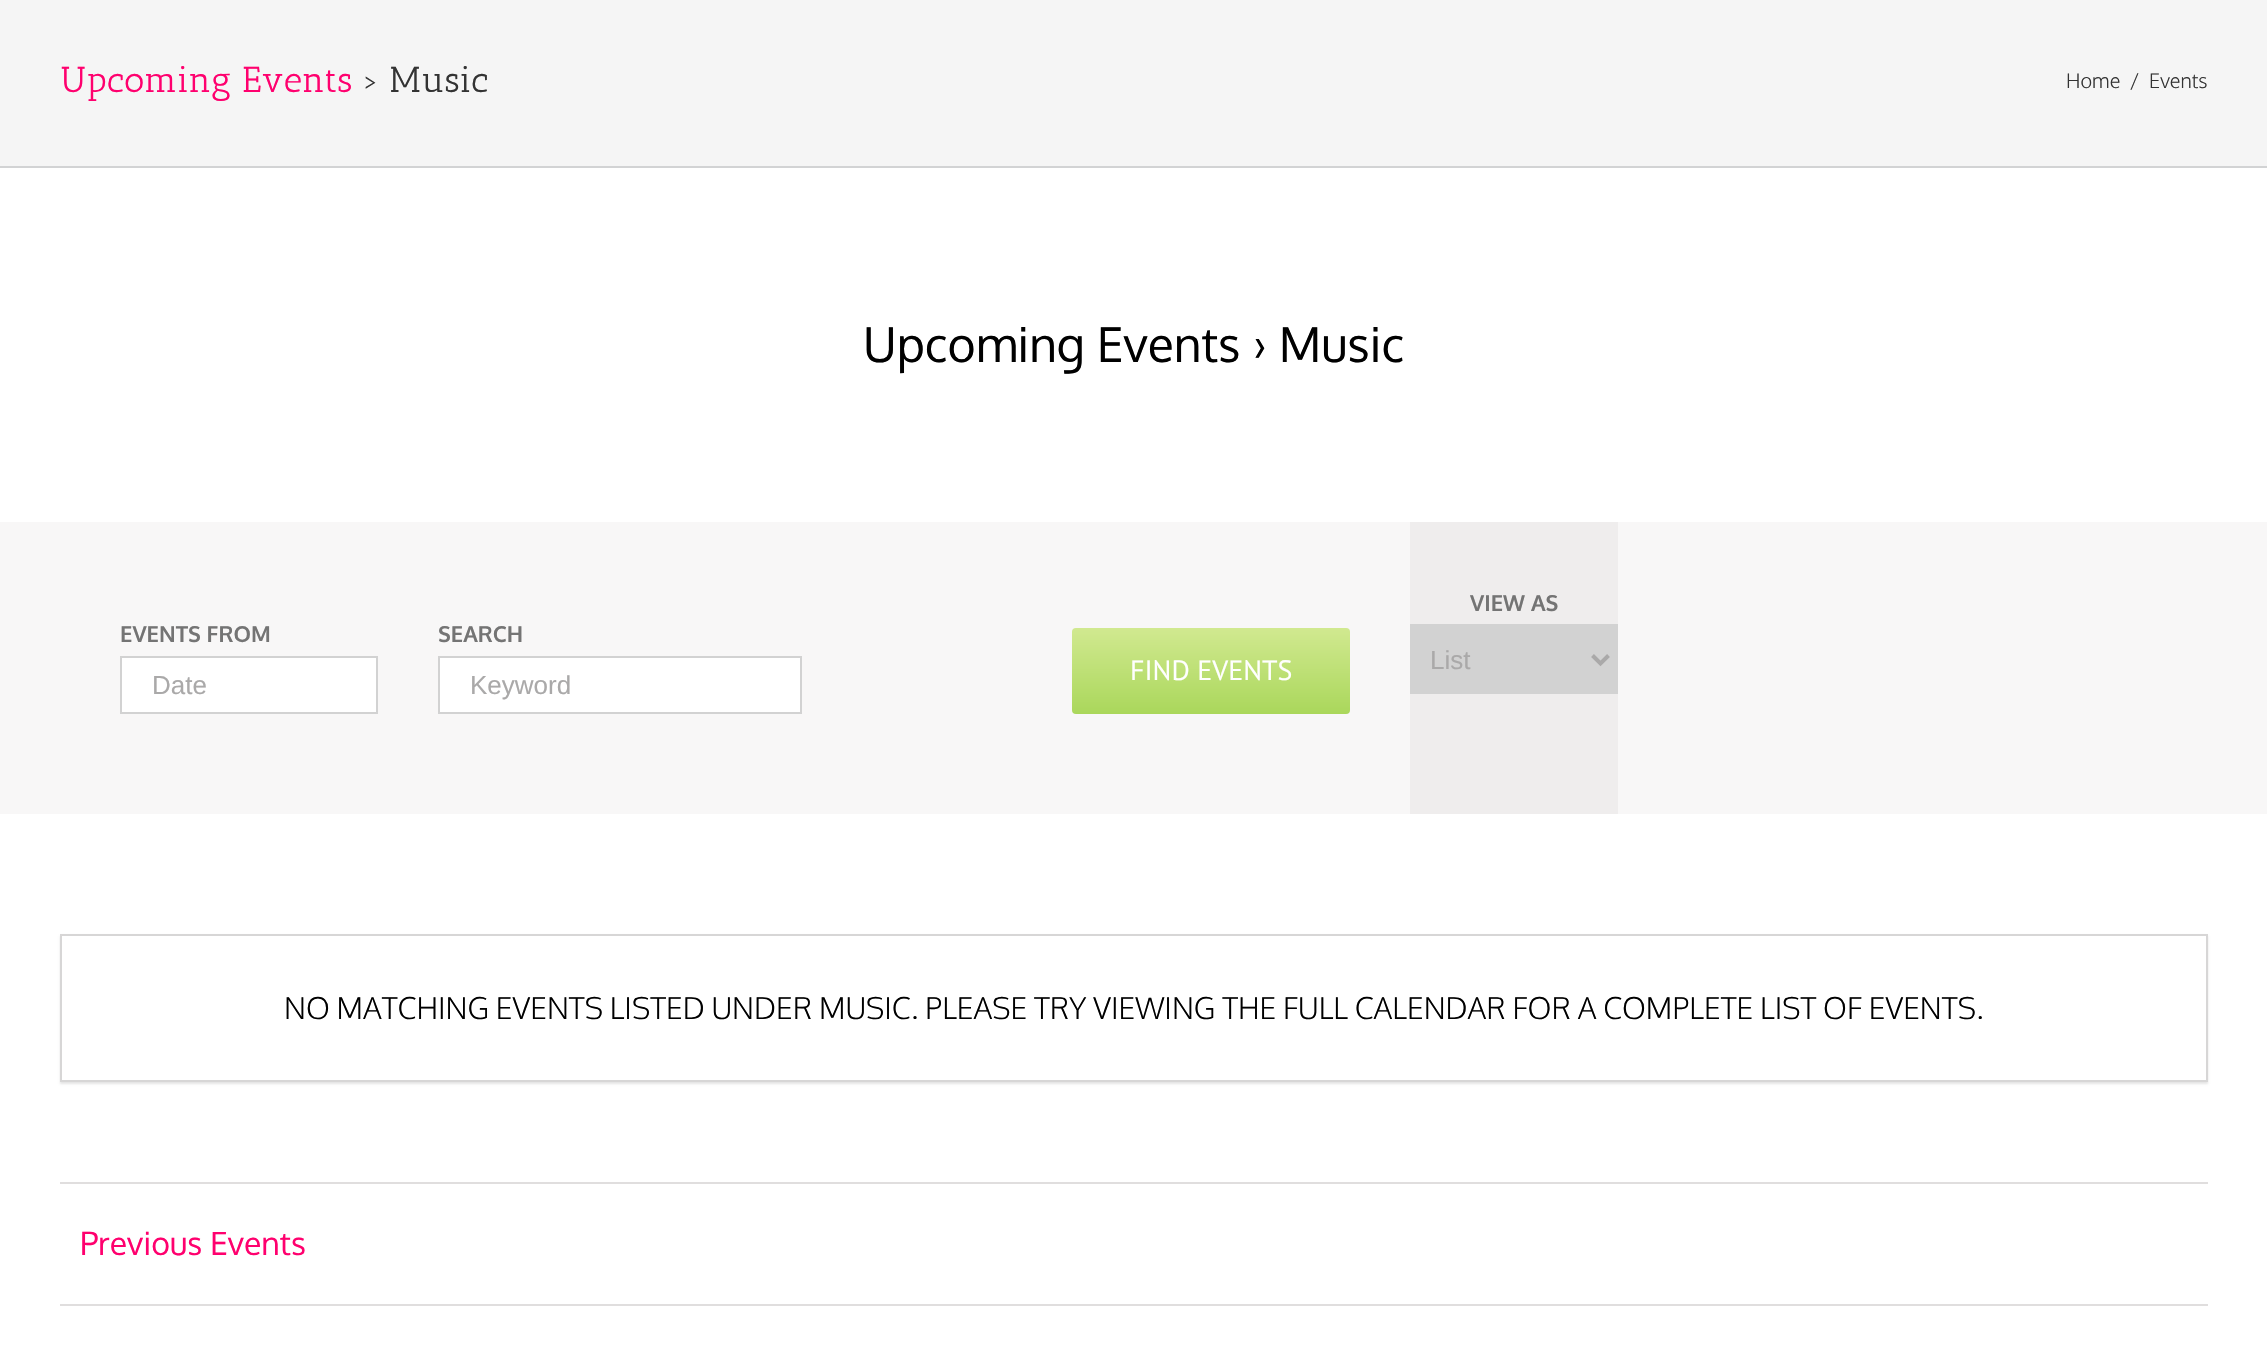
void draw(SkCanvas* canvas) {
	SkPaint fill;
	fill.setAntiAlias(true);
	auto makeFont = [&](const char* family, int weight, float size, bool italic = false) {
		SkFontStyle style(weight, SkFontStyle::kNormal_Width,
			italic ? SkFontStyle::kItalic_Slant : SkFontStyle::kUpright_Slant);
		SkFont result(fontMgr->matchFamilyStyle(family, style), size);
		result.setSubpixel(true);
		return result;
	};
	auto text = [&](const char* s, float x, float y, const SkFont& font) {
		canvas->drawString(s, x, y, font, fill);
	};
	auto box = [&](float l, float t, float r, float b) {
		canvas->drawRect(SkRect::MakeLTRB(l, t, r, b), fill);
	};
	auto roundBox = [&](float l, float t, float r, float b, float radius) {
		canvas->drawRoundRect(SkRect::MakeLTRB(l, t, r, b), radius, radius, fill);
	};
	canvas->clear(0xFFFFFFFF);
	fill.setColor(0xFFF5F5F5);
	box(0, 0, 2267, 166);
	fill.setColor(0xFFD2D3D4);
	box(0, 166, 2267, 168);
	fill.setColor(0xFFF8F7F7);
	box(0, 522, 2267, 814);
	fill.setColor(0xFFFFFFFF);
	canvas->drawRect(SkRect::MakeLTRB(121, 657, 377, 713), fill);
	fill.setStyle(SkPaint::kStroke_Style);
	fill.setStrokeWidth(2);
	fill.setColor(0xFFD2D2D2);
	canvas->drawRect(SkRect::MakeLTRB(121, 657, 377, 713), fill);
	fill.setStyle(SkPaint::kFill_Style);
	fill.setColor(0xFFFFFFFF);
	canvas->drawRect(SkRect::MakeLTRB(439, 657, 801, 713), fill);
	fill.setStyle(SkPaint::kStroke_Style);
	fill.setColor(0xFFD2D2D2);
	canvas->drawRect(SkRect::MakeLTRB(439, 657, 801, 713), fill);
	fill.setStyle(SkPaint::kFill_Style);
	{
		const SkColor colors[] = {0xFFAAD75B, 0xFFD1E990};
		const float stops[] = {0, 1};
		const SkPoint ends[] = {{1211, 714}, {1211, 628}};
		fill.setShader(SkGradientShader::MakeLinear(ends, colors, stops, 2, SkTileMode::kClamp));
		fill.setAlpha(255);
	}
	roundBox(1072, 628, 1350, 714, 4);
	fill.setShader(nullptr);
	fill.setColor(0xFFEFEDED);
	box(1410, 522, 1618, 814);
	fill.setColor(0xFFD2D2D2);
	box(1410, 624, 1618, 694);
	fill.setStyle(SkPaint::kStroke_Style);
	fill.setStrokeWidth(4);
	fill.setColor(0xFFAAA9A9);
	canvas->drawPath(SkPathBuilder().moveTo(1592.5f, 655.5f).lineTo(1600.5f, 663.5f).lineTo(1608.5f, 655.5f).detach(), fill);
	canvas->save();
	canvas->clipPath(SkPathBuilder(SkPathFillType::kEvenOdd).moveTo(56, 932).lineTo(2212, 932).lineTo(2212, 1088).lineTo(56, 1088).close().moveTo(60, 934).lineTo(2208, 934).lineTo(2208, 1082).lineTo(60, 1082).close().detach(), true);
	fill.setStyle(SkPaint::kFill_Style);
	fill.setColor(0x1A000000);
	fill.setMaskFilter(SkMaskFilter::MakeBlur(kNormal_SkBlurStyle, 1));
	canvas->drawRect(SkRect::MakeLTRB(60, 936, 2208, 1084), fill);
	fill.setMaskFilter(nullptr);
	canvas->restore();
	fill.setStyle(SkPaint::kStroke_Style);
	fill.setStrokeWidth(2);
	fill.setColor(0xFFD7D6D6);
	canvas->drawRect(SkRect::MakeLTRB(61, 935, 2207, 1081), fill);
	fill.setStyle(SkPaint::kFill_Style);
	fill.setColor(0xFFE0DEDE);
	box(60, 1182, 2208, 1184);
	box(60, 1304, 2208, 1306);
	auto font1 = makeFont("Antic Slab", 400, 36);
	fill.setColor(0xFFFF006E);
	text("Upcoming Events", 60, 92, font1);
	fill.setColor(0xFF333333);
	text("› Music", 363, 92, font1);
	auto font2 = makeFont("Oxygen", 300, 20);
	text("Home", 2066, 88, font2);
	text("/", 2130, 88, font2);
	text("Events", 2149, 88, font2);
	auto font3 = makeFont("Oxygen", 400, 48);
	fill.setColor(0xFF000000);
	text("Upcoming Events › Music", 863, 362, font3);
	auto font4 = makeFont("Oxygen", 700, 22);
	fill.setColor(0xFF747474);
	text("EVENTS FROM", 120, 642, font4);
	auto font5 = makeFont("Liberation Sans", 400, 26);
	fill.setColor(0xFFAAA9A9);
	text("Date", 152, 694, font5);
	fill.setColor(0xFF747474);
	text("SEARCH", 438, 642, font4);
	fill.setColor(0xFFAAA9A9);
	text("Keyword", 470, 694, font5);
	auto font6 = makeFont("PT Sans", 400, 28);
	fill.setColor(0xFFFFFFFF);
	text("FIND EVENTS", 1130, 680, font6);
	fill.setColor(0xFF747474);
	text("VIEW AS", 1470, 611, font4);
	fill.setColor(0xFFAAA9A9);
	text("List", 1430, 669, font5);
	auto font7 = makeFont("Oxygen", 300, 30);
	fill.setColor(0xFF000000);
	text("NO MATCHING EVENTS LISTED UNDER MUSIC. PLEASE TRY VIEWING THE FULL CALENDAR FOR A COMPLETE LIST OF EVENTS.", 284, 1019, font7);
	auto font8 = makeFont("Oxygen", 400, 32);
	fill.setColor(0xFFFF006E);
	text("Previous Events", 80, 1255, font8);
}
